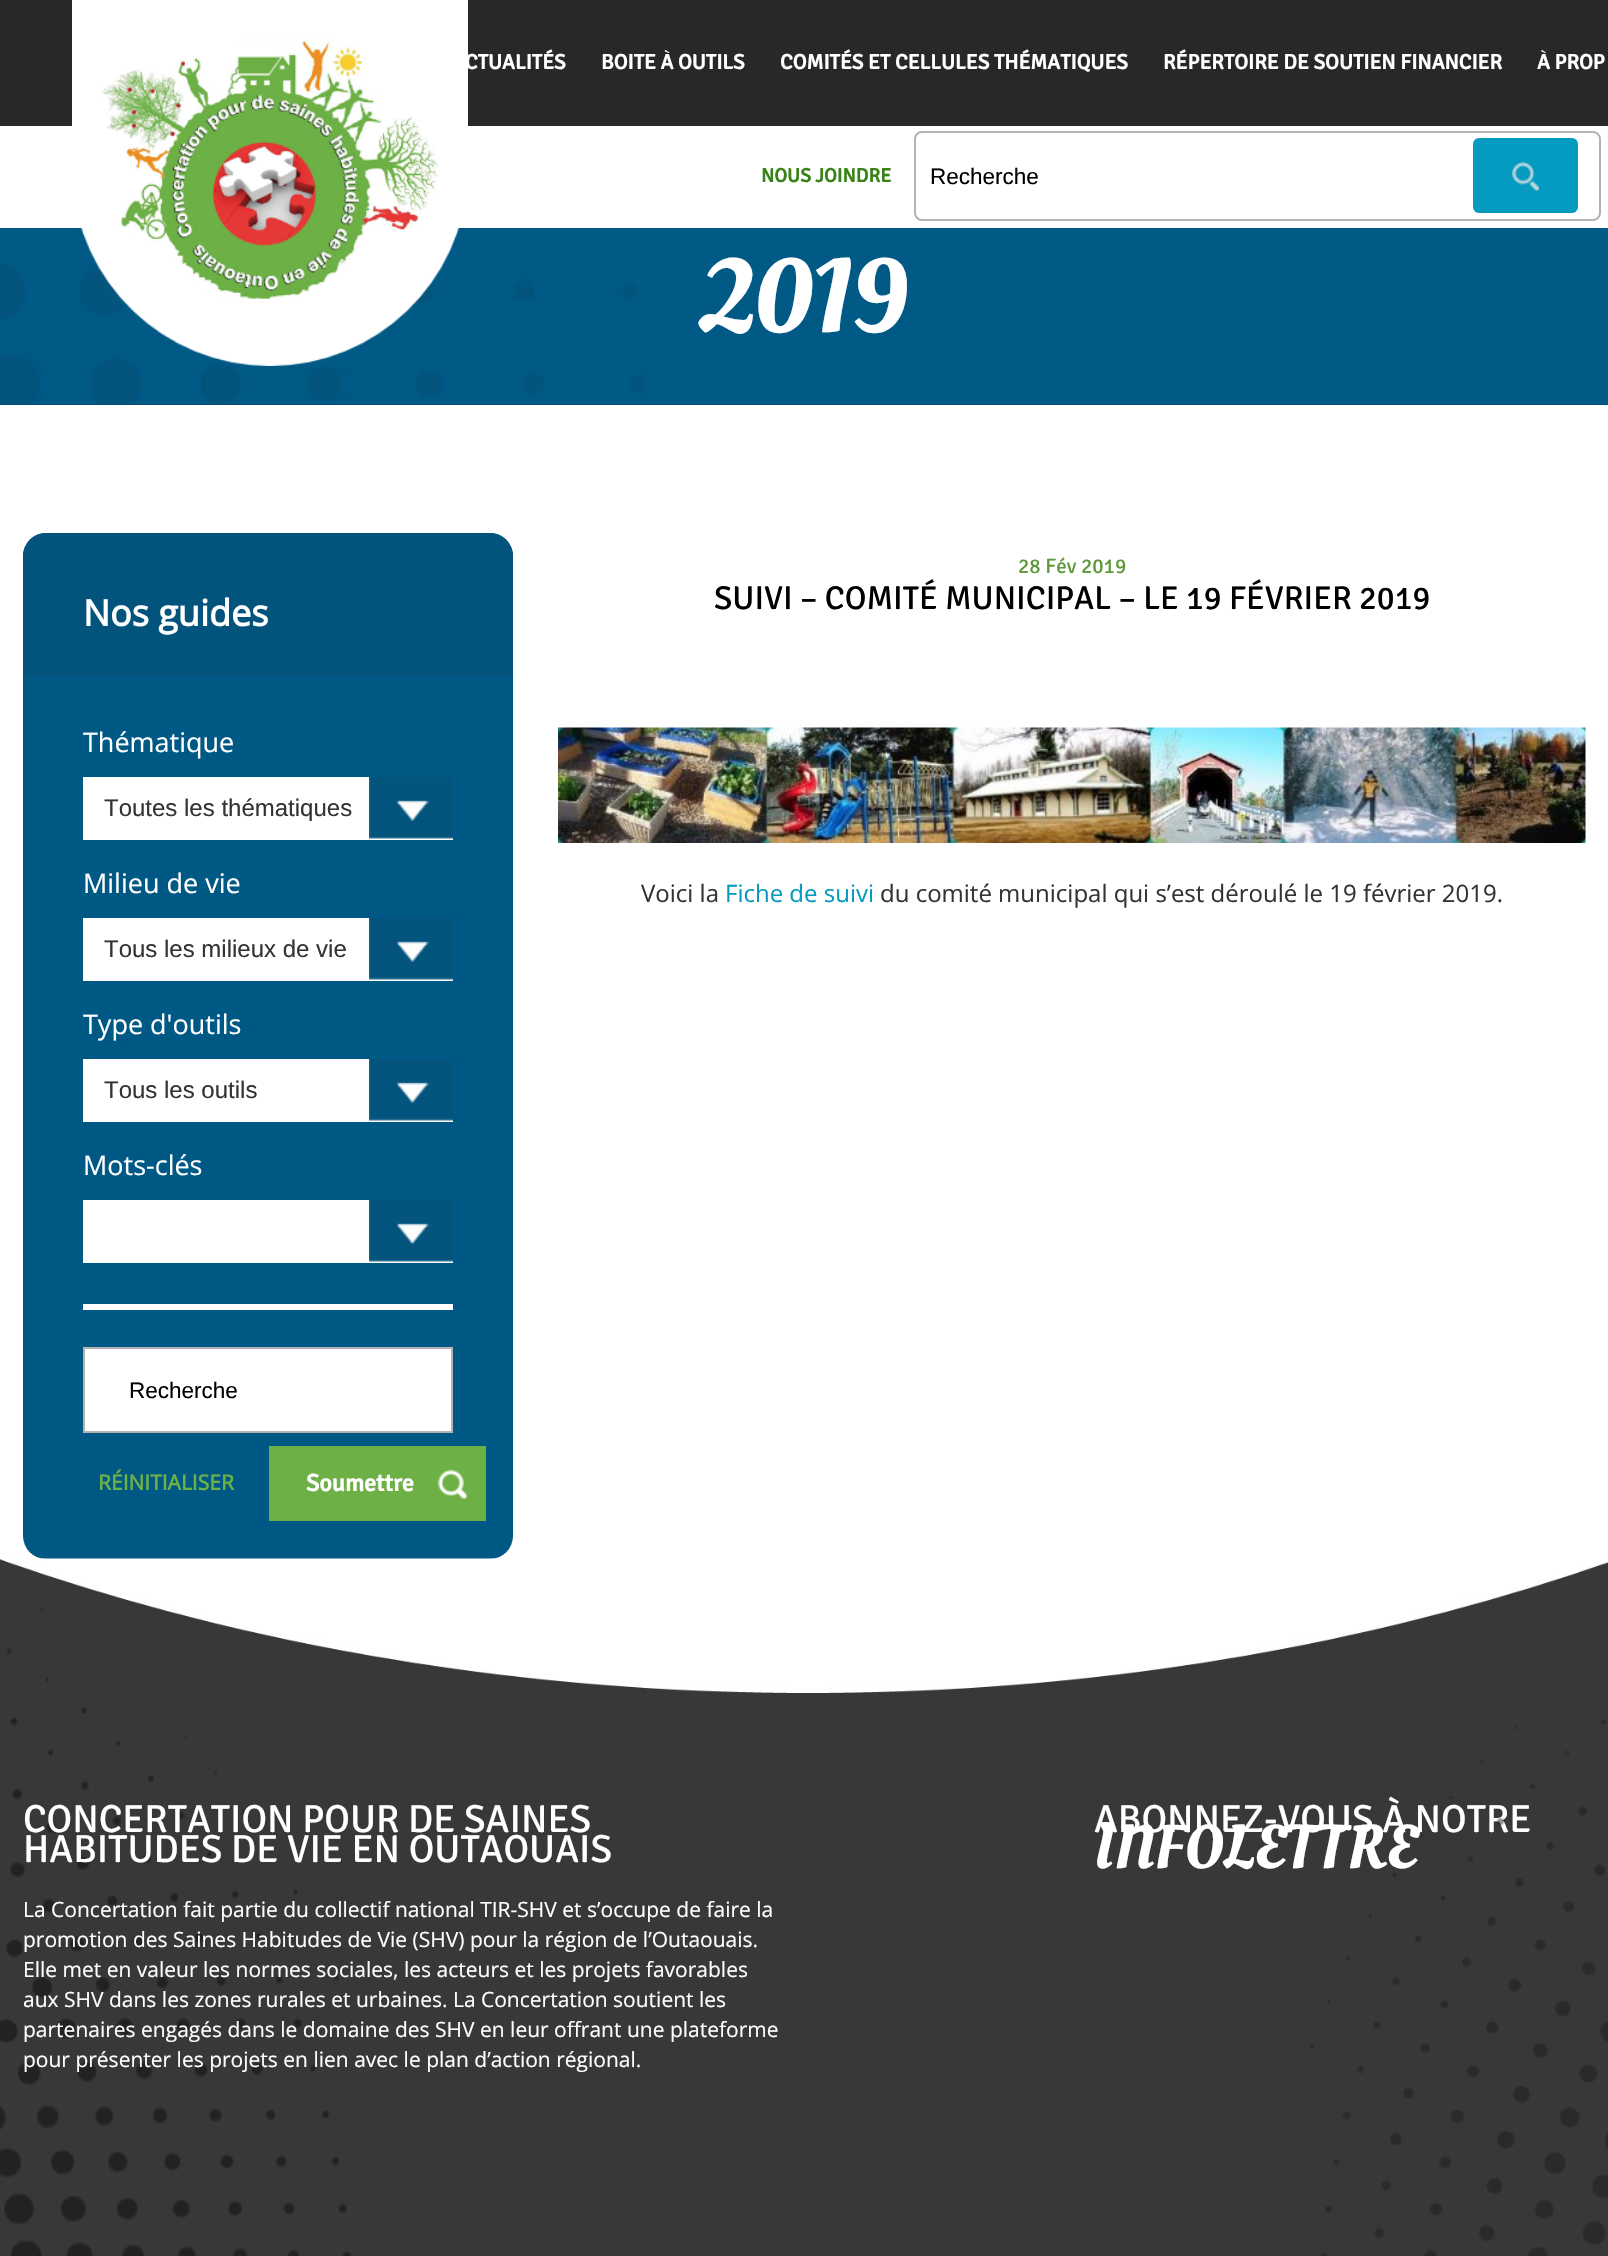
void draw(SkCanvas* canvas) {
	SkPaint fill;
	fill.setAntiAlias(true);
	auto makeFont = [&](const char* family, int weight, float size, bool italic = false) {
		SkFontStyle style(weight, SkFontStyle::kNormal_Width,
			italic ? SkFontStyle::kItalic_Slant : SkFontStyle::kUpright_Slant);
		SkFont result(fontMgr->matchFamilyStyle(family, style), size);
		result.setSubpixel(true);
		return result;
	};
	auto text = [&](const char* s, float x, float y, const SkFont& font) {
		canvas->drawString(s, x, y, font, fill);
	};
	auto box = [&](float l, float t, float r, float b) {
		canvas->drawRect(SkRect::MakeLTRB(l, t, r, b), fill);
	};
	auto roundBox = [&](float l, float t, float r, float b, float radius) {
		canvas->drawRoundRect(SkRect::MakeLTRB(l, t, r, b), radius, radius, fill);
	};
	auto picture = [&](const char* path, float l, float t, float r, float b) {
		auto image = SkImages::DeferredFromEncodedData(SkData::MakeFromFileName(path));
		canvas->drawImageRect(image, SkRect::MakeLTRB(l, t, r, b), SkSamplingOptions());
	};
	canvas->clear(0xFFFFFFFF);
	fill.setColor(0xFF282828);
	box(0, 0, 1608, 126);
	fill.setStyle(SkPaint::kStroke_Style);
	fill.setStrokeWidth(2);
	fill.setColor(0xFFB3B3B3);
	canvas->drawRoundRect(SkRect::MakeLTRB(915, 132, 1600, 220), 7, 7, fill);
	fill.setStyle(SkPaint::kFill_Style);
	fill.setColor(0xFF059ABF);
	roundBox(1473, 138, 1578, 213, 6);
	picture("image1.png", 1512, 162, 1539, 191);
	fill.setColor(0xFF03547D);
	box(0, 403, 1608, 405);
	picture("image2.png", 0, 228, 1608, 404);
	fill.setColor(0xFF005985);
	roundBox(23, 533, 513, 1559, 23);
	fill.setColor(0xFF03547D);
	canvas->drawPath(SkPathBuilder().moveTo(46, 533).lineTo(490, 533).cubicTo(502.5f, 533, 513, 543.5f, 513, 556).lineTo(513, 677).lineTo(23, 677).lineTo(23, 556).cubicTo(23, 543.5f, 33.5f, 533, 46, 533).close().detach(), fill);
	fill.setColor(0xFFFFFFFF);
	box(83, 777, 453, 840);
	picture("image3.png", 369, 777, 453, 839);
	box(83, 918, 453, 981);
	picture("image3.png", 369, 918, 453, 980);
	box(83, 1059, 453, 1122);
	picture("image3.png", 369, 1059, 453, 1121);
	box(83, 1200, 453, 1263);
	picture("image3.png", 369, 1200, 453, 1262);
	box(83, 1304, 453, 1310);
	canvas->drawRect(SkRect::MakeLTRB(84, 1348, 452, 1432), fill);
	fill.setStyle(SkPaint::kStroke_Style);
	fill.setColor(0xFFB3B3B3);
	canvas->drawRect(SkRect::MakeLTRB(84, 1348, 452, 1432), fill);
	fill.setStyle(SkPaint::kFill_Style);
	fill.setColor(0xFF6DB045);
	box(269, 1446, 486, 1521);
	picture("image4.png", 437, 1469, 467, 1499);
	picture("image5.png", 558, 727, 1586, 843);
	fill.setColor(0xFF383838);
	box(0, 1693, 1608, 2256);
	picture("image6.png", 0, 1558, 1608, 1693);
	picture("image7.png", 0, 1608, 353, 2256);
	auto font1 = makeFont("Signika", 700, 21);
	fill.setColor(0xFFFFFFFF);
	text("CTUALITÉS", 465, 69, font1);
	picture("image0.png", 72, 0, 468, 366);
	text("BOITE À OUTILS", 601, 69, font1);
	text("COMITÉS ET CELLULES THÉMATIQUES", 780, 69, font1);
	text("RÉPERTOIRE DE SOUTIEN FINANCIER", 1163, 69, font1);
	text("À PROP", 1537, 69, font1);
	auto font2 = makeFont("Signika", 700, 19.5f);
	fill.setColor(0xFF388216);
	text("NOUS JOINDRE", 761, 182, font2);
	auto font3 = makeFont("Liberation Sans", 400, 22.5f);
	fill.setColor(0xFF000000);
	text("Recherche", 930, 184, font3);
	auto font4 = makeFont("Oleo Script", 400, 105);
	fill.setColor(0xFFFFFFFF);
	text("2019", 701, 332, font4);
	auto font5 = makeFont("Open Sans", 700, 36);
	text("Nos guides", 83, 626, font5);
	auto font6 = makeFont("Open Sans", 400, 27);
	text("Thématique", 83, 752, font6);
	auto font7 = makeFont("Liberation Sans", 400, 24);
	fill.setColor(0xFF343434);
	text("Toutes les thématiques", 104, 816, font7);
	fill.setColor(0xFFFFFFFF);
	text("Milieu de vie", 83, 893, font6);
	fill.setColor(0xFF343434);
	text("Tous les milieux de vie", 104, 957, font7);
	fill.setColor(0xFFFFFFFF);
	text("Type d'outils", 83, 1034, font6);
	fill.setColor(0xFF343434);
	text("Tous les outils", 104, 1098, font7);
	fill.setColor(0xFFFFFFFF);
	text("Mots-clés", 83, 1175, font6);
	fill.setColor(0xFF000000);
	text("Recherche", 129, 1398, font3);
	auto font8 = makeFont("Open Sans", 700, 21);
	fill.setColor(0xFF6DB045);
	text("RÉINITIALISER", 98, 1490, font8);
	auto font9 = makeFont("Signika", 700, 24);
	fill.setColor(0xFFFFFFFF);
	text("Soumettre", 306, 1491, font9);
	auto font10 = makeFont("Signika", 300, 21);
	fill.setColor(0xFF5F993C);
	text("28 Fév 2019", 1018, 573, font10);
	auto font11 = makeFont("Signika", 300, 33);
	fill.setColor(0xFF000000);
	text("SUIVI – COMITÉ MUNICIPAL – LE 19 FÉVRIER 2019", 714, 609, font11);
	auto font12 = makeFont("Open Sans", 400, 24);
	fill.setColor(0xFF343434);
	text("Voici la", 641, 902, font12);
	fill.setColor(0xFF059ABF);
	text("Fiche de suivi", 725, 902, font12);
	fill.setColor(0xFF343434);
	text("du comité municipal qui s’est déroulé le 19 février 2019.", 880, 902, font12);
	auto font13 = makeFont("Signika", 300, 39);
	fill.setColor(0xFFFFFFFF);
	text("CONCERTATION POUR DE SAINES", 23, 1832, font13);
	text("HABITUDES DE VIE EN OUTAOUAIS", 23, 1862, font13);
	auto font14 = makeFont("Open Sans", 400, 21);
	text("La Concertation fait partie du collectif national TIR-SHV et s’occupe de faire la", 23, 1917, font14);
	text("promotion des Saines Habitudes de Vie (SHV) pour la région de l’Outaouais.", 23, 1947, font14);
	text("Elle met en valeur les normes sociales, les acteurs et les projets favorables", 23, 1977, font14);
	text("aux SHV dans les zones rurales et urbaines. La Concertation soutient les", 23, 2007, font14);
	text("partenaires engagés dans le domaine des SHV en leur offrant une plateforme", 23, 2037, font14);
	text("pour présenter les projets en lien avec le plan d’action régional.", 23, 2067, font14);
	text("ABONNEZ-VOUS À NOTRE", 1094, 1832, font13);
	auto font15 = makeFont("Oleo Script", 400, 61.5f);
	text("INFOLETTRE", 1094, 1868, font15);
	picture("image8.png", 1309, 1665, 1608, 2256);
}
